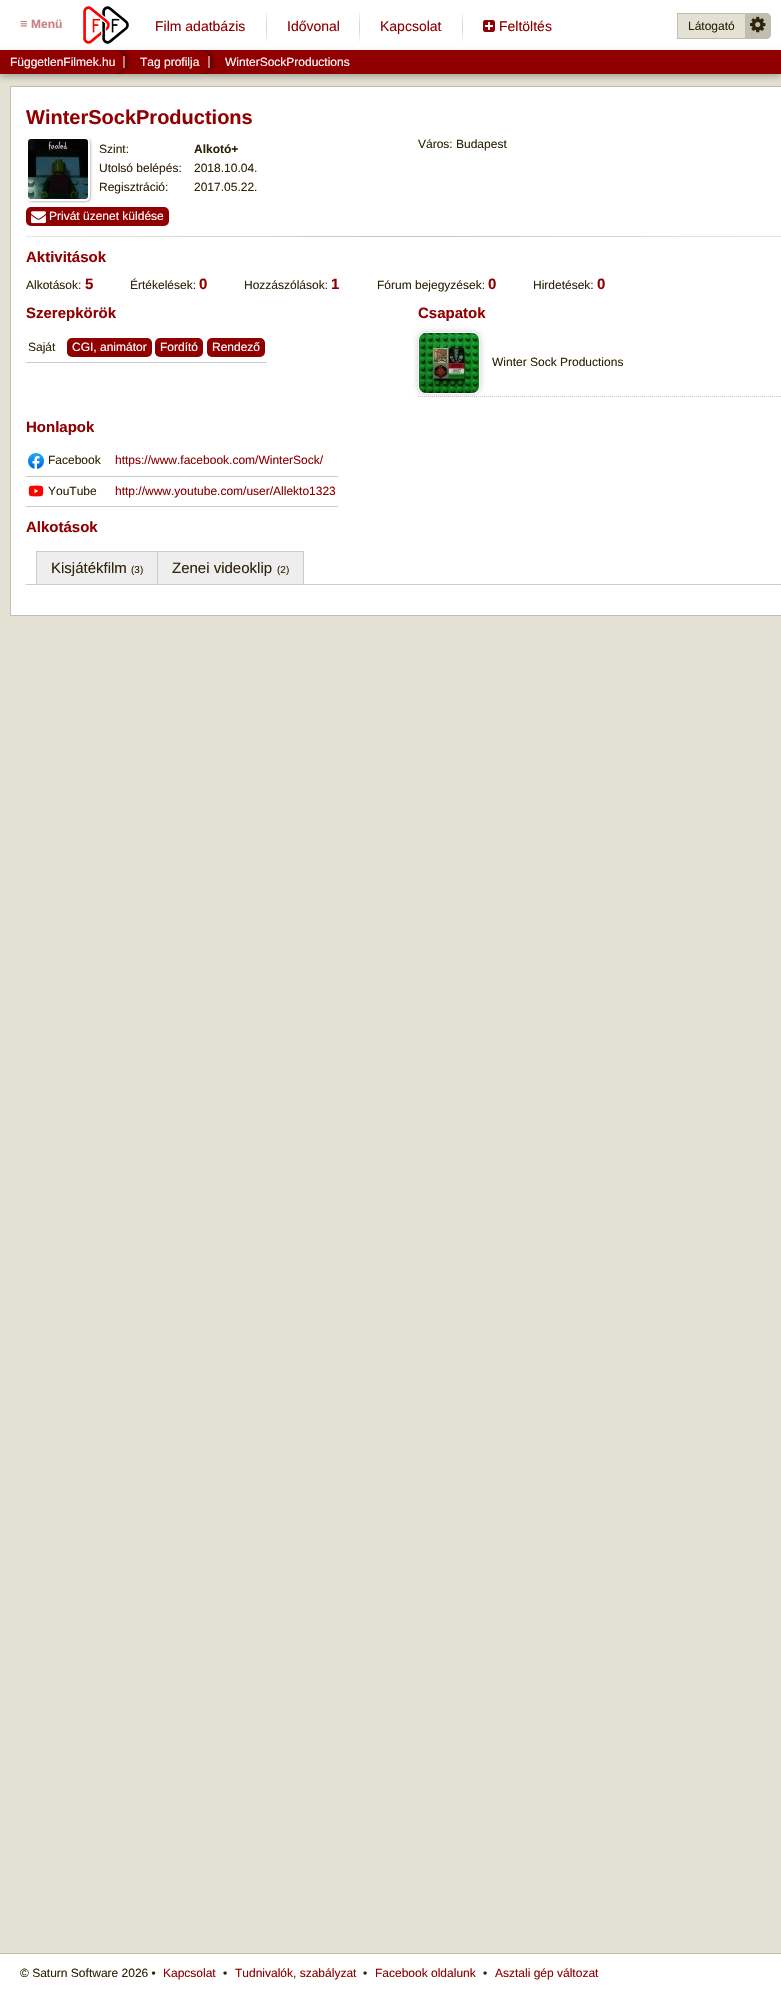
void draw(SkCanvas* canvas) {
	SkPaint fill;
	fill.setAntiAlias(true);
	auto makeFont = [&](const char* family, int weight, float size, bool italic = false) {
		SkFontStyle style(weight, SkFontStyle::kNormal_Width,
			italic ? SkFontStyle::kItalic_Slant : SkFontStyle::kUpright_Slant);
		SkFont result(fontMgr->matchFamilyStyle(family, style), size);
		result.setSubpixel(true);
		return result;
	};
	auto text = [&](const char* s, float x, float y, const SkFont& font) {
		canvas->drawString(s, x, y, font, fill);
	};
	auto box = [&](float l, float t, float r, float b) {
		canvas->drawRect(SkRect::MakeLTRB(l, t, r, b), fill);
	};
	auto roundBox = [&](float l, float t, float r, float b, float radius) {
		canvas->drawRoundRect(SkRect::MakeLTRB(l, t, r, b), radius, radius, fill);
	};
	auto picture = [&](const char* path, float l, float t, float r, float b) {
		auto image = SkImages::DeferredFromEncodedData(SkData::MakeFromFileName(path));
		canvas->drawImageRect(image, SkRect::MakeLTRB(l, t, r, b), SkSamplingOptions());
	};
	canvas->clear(0xFFE2E1D3);
	fill.setColor(0xFFFFFFFF);
	box(0, 0, 781, 50);
	picture("image0.png", 83, 6, 129, 44);
	{
		const SkColor colors[] = {0xFFF7F7F7, 0xFFD3D3D3, 0xFFF7F7F7};
		const float stops[] = {0, 0.5f, 1};
		const SkPoint ends[] = {{267, 12}, {267, 42}};
		fill.setShader(SkGradientShader::MakeLinear(ends, colors, stops, 3, SkTileMode::kClamp));
		fill.setAlpha(255);
	}
	box(266, 12, 267, 42);
	{
		const SkColor colors[] = {0xFFF7F7F7, 0xFFD3D3D3, 0xFFF7F7F7};
		const float stops[] = {0, 0.5f, 1};
		const SkPoint ends[] = {{360, 12}, {360, 42}};
		fill.setShader(SkGradientShader::MakeLinear(ends, colors, stops, 3, SkTileMode::kClamp));
		fill.setAlpha(255);
	}
	box(359, 12, 360, 42);
	{
		const SkColor colors[] = {0xFFF7F7F7, 0xFFD3D3D3, 0xFFF7F7F7};
		const float stops[] = {0, 0.5f, 1};
		const SkPoint ends[] = {{463, 12}, {463, 42}};
		fill.setShader(SkGradientShader::MakeLinear(ends, colors, stops, 3, SkTileMode::kClamp));
		fill.setAlpha(255);
	}
	box(462, 12, 463, 42);
	picture("image1.png", 483, 20, 495, 32);
	fill.setShader(nullptr);
	fill.setColor(0xFFE2E1D3);
	box(678, 14, 745, 38);
	fill.setColor(0xFFC0BFAF);
	box(677, 13, 745, 14);
	box(677, 38, 745, 39);
	box(677, 13, 678, 39);
	canvas->drawPath(SkPathBuilder().moveTo(745, 13).lineTo(766, 13).cubicTo(769, 13, 771, 15, 771, 18).lineTo(771, 34).cubicTo(771, 37, 769, 39, 766, 39).lineTo(745, 39).close().detach(), fill);
	picture("image2.png", 750, 16, 766, 33);
	fill.setColor(0xFFFFFFFF);
	canvas->drawRect(SkRect::MakeLTRB(10.5f, 86.5f, 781.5f, 615.5f), fill);
	fill.setStyle(SkPaint::kStroke_Style);
	fill.setStrokeWidth(1);
	fill.setColor(0xFFC0BFAF);
	canvas->drawRect(SkRect::MakeLTRB(10.5f, 86.5f, 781.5f, 615.5f), fill);
	fill.setStyle(SkPaint::kFill_Style);
	fill.setColor(0x40000000);
	fill.setMaskFilter(SkMaskFilter::MakeBlur(kNormal_SkBlurStyle, 3));
	canvas->drawRect(SkRect::MakeLTRB(0, 53, 781, 77), fill);
	fill.setMaskFilter(nullptr);
	fill.setColor(0xFF900000);
	box(0, 50, 781, 74);
	canvas->save();
	canvas->clipRect(SkRect::MakeLTRB(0, 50, 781, 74));
	canvas->clipPath(SkPathBuilder(SkPathFillType::kEvenOdd).moveTo(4, 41).lineTo(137, 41).lineTo(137, 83).lineTo(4, 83).close().moveTo(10, 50).lineTo(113, 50).cubicTo(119.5f, 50, 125, 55.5f, 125, 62).cubicTo(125, 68.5f, 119.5f, 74, 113, 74).lineTo(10, 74).close().detach(), true);
	fill.setColor(0x54000000);
	fill.setMaskFilter(SkMaskFilter::MakeBlur(kNormal_SkBlurStyle, 2.5f));
	canvas->drawRoundRect(SkRect::MakeLTRB(13, 50, 128, 74), 12, 12, fill);
	fill.setMaskFilter(nullptr);
	canvas->restore();
	fill.setColor(0x80FFFFFF);
	box(123, 56, 125, 68);
	canvas->save();
	canvas->clipRect(SkRect::MakeLTRB(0, 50, 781, 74));
	canvas->clipPath(SkPathBuilder(SkPathFillType::kEvenOdd).moveTo(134, 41).lineTo(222, 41).lineTo(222, 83).lineTo(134, 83).close().moveTo(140, 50).lineTo(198, 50).cubicTo(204.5f, 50, 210, 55.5f, 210, 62).cubicTo(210, 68.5f, 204.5f, 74, 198, 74).lineTo(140, 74).close().detach(), true);
	fill.setColor(0x54000000);
	fill.setMaskFilter(SkMaskFilter::MakeBlur(kNormal_SkBlurStyle, 2.5f));
	canvas->drawRoundRect(SkRect::MakeLTRB(143, 50, 213, 74), 12, 12, fill);
	fill.setMaskFilter(nullptr);
	canvas->restore();
	fill.setColor(0x80FFFFFF);
	box(208, 56, 210, 68);
	canvas->save();
	canvas->clipPath(SkPathBuilder(SkPathFillType::kEvenOdd).moveTo(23, 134).lineTo(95, 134).lineTo(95, 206).lineTo(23, 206).close().moveTo(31, 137).lineTo(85, 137).cubicTo(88, 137, 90, 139, 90, 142).lineTo(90, 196).cubicTo(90, 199, 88, 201, 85, 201).lineTo(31, 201).cubicTo(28, 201, 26, 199, 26, 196).lineTo(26, 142).cubicTo(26, 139, 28, 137, 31, 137).close().detach(), true);
	fill.setColor(0x40000000);
	fill.setMaskFilter(SkMaskFilter::MakeBlur(kNormal_SkBlurStyle, 1));
	canvas->drawRoundRect(SkRect::MakeLTRB(27, 138, 91, 202), 5, 5, fill);
	fill.setMaskFilter(nullptr);
	canvas->restore();
	picture("image3.png", 28, 139, 88, 199);
	fill.setColor(0xFF900000);
	roundBox(26, 207, 169, 226, 5);
	picture("image4.png", 31, 211, 46, 224);
	{
		const SkColor colors[] = {0xFFE7E7E7, 0xFFC4C4C4, 0xFFE7E7E7};
		const float stops[] = {0, 0.5f, 1};
		const SkPoint ends[] = {{26, 237}, {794, 236}};
		fill.setShader(SkGradientShader::MakeLinear(ends, colors, stops, 3, SkTileMode::kClamp));
		fill.setAlpha(255);
	}
	box(26, 236, 781, 237);
	fill.setShader(nullptr);
	fill.setColor(0xFFCCCCCC);
	box(26, 362, 267, 363);
	fill.setColor(0xFF900000);
	roundBox(67, 338, 152, 357, 5);
	roundBox(155, 338, 203, 357, 5);
	roundBox(207, 338, 265, 357, 5);
	fill.setStyle(SkPaint::kStroke_Style);
	fill.setColor(0xFFCCCCCC);
	fill.setPathEffect(SkDashPathEffect::Make({{1, 1}}, 0));
	canvas->drawPath(SkPathBuilder().moveTo(418, 396.5f).lineTo(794, 396.5f).detach(), fill);
	fill.setPathEffect(nullptr);
	fill.setStyle(SkPaint::kFill_Style);
	fill.setColor(0x26000000);
	fill.setMaskFilter(SkMaskFilter::MakeBlur(kNormal_SkBlurStyle, 2.5f));
	canvas->drawRoundRect(SkRect::MakeLTRB(417, 331, 481, 395), 9, 9, fill);
	fill.setMaskFilter(nullptr);
	fill.setStyle(SkPaint::kStroke_Style);
	fill.setColor(0xFFFFFFFF);
	canvas->drawRoundRect(SkRect::MakeLTRB(418.5f, 332.5f, 479.5f, 393.5f), 7.5f, 7.5f, fill);
	picture("image5.png", 419, 333, 479, 393);
	picture("image6.png", 28, 453, 44, 469);
	fill.setStyle(SkPaint::kFill_Style);
	fill.setColor(0xFFCCCCCC);
	box(26, 476, 338, 477);
	picture("image7.png", 28, 485, 44, 497);
	box(26, 506, 338, 507);
	box(26, 584, 781, 585);
	fill.setColor(0xFFEEEEEE);
	box(37, 552, 157, 584);
	fill.setColor(0xFFCCCCCC);
	box(36, 551, 304, 552);
	box(36, 551, 37, 584);
	fill.setColor(0xFFEEEEEE);
	box(158, 552, 303, 584);
	fill.setColor(0xFFCCCCCC);
	box(303, 551, 304, 584);
	box(157, 551, 158, 584);
	fill.setColor(0xFFFFFFFF);
	box(0, 1954, 781, 1994);
	fill.setColor(0xFFC0BFAF);
	box(0, 1953, 781, 1954);
	auto font1 = makeFont("Liberation Sans", 400, 13);
	fill.setColor(0xFFC88080);
	text("≡", 20, 28, font1);
	auto font2 = makeFont("Liberation Sans", 700, 12);
	text("Menü", 31, 28, font2);
	auto font3 = makeFont("Liberation Sans", 400, 14);
	fill.setColor(0xFF900000);
	text("Film adatbázis", 155, 31, font3);
	text("Idővonal", 287, 31, font3);
	text("Kapcsolat", 380, 31, font3);
	text("Feltöltés", 499, 31, font3);
	auto font4 = makeFont("Liberation Sans", 400, 12);
	fill.setColor(0xFF2E2508);
	text("Látogató", 688, 30, font4);
	fill.setColor(0xFFFFFFFF);
	text("FüggetlenFilmek.hu", 10, 66, font4);
	text("Tag profilja", 140, 66, font4);
	text("WinterSockProductions", 225, 66, font4);
	auto font5 = makeFont("Liberation Sans", 700, 20);
	fill.setColor(0xFF900000);
	text("WinterSockProductions", 26, 124, font5);
	fill.setColor(0xFF2E2508);
	text("Szint:", 99, 153, font4);
	text("Alkotó+", 194, 153, font2);
	text("Utolsó belépés:", 99, 172, font4);
	text("2018.10.04.", 194, 172, font4);
	text("Regisztráció:", 99, 191, font4);
	text("2017.05.22.", 194, 191, font4);
	fill.setColor(0xFFFFFFFF);
	text("Privát üzenet küldése", 49, 220, font4);
	fill.setColor(0xFF2E2508);
	text("Város: Budapest", 418, 148, font4);
	auto font6 = makeFont("Liberation Sans", 700, 15);
	fill.setColor(0xFF900000);
	text("Aktivitások", 26, 262, font6);
	fill.setColor(0xFF2E2508);
	text("Alkotások:", 26, 289, font4);
	fill.setColor(0xFF900000);
	text("5", 85, 289, font6);
	fill.setColor(0xFF2E2508);
	text("Értékelések:", 130, 289, font4);
	fill.setColor(0xFF900000);
	text("0", 199, 289, font6);
	fill.setColor(0xFF2E2508);
	text("Hozzászólások:", 244, 289, font4);
	fill.setColor(0xFF900000);
	text("1", 331, 289, font6);
	fill.setColor(0xFF2E2508);
	text("Fórum bejegyzések:", 377, 289, font4);
	fill.setColor(0xFF900000);
	text("0", 488, 289, font6);
	fill.setColor(0xFF2E2508);
	text("Hirdetések:", 533, 289, font4);
	fill.setColor(0xFF900000);
	text("0", 597, 289, font6);
	text("Szerepkörök", 26, 318, font6);
	fill.setColor(0xFF2E2508);
	text("Saját", 28, 351, font4);
	fill.setColor(0xFFFFFFFF);
	text("CGI, animátor", 72, 351, font4);
	text("Fordító", 160, 351, font4);
	text("Rendező", 212, 351, font4);
	fill.setColor(0xFF900000);
	text("Csapatok", 418, 318, font6);
	fill.setColor(0xFF2E2508);
	text("Winter Sock Productions", 492, 366, font4);
	fill.setColor(0xFF900000);
	text("Honlapok", 26, 432, font6);
	fill.setColor(0xFF2E2508);
	text("Facebook", 48, 464, font4);
	fill.setColor(0xFF900000);
	text("https://www.facebook.com/WinterSock/", 115, 464, font4);
	fill.setColor(0xFF2E2508);
	text("YouTube", 48, 495, font4);
	fill.setColor(0xFF900000);
	text("http://www.youtube.com/user/Allekto1323", 115, 495, font4);
	text("Alkotások", 26, 532, font6);
	auto font7 = makeFont("Liberation Sans", 400, 15);
	fill.setColor(0xFF2E2508);
	text("Kisjátékfilm", 51, 573, font7);
	auto font8 = makeFont("Liberation Sans", 400, 10);
	text("(3)", 131, 573, font8);
	text("Zenei videoklip", 172, 573, font7);
	text("(2)", 277, 573, font8);
	text("© Saturn Software 2026 •", 20, 1977, font4);
	fill.setColor(0xFF900000);
	text("Kapcsolat", 163, 1977, font4);
	fill.setColor(0xFF2E2508);
	text("•", 223, 1977, font4);
	fill.setColor(0xFF900000);
	text("Tudnivalók, szabályzat", 235, 1977, font4);
	fill.setColor(0xFF2E2508);
	text("•", 363, 1977, font4);
	fill.setColor(0xFF900000);
	text("Facebook oldalunk", 375, 1977, font4);
	fill.setColor(0xFF2E2508);
	text("•", 483, 1977, font4);
	fill.setColor(0xFF900000);
	text("Asztali gép változat", 495, 1977, font4);
}
